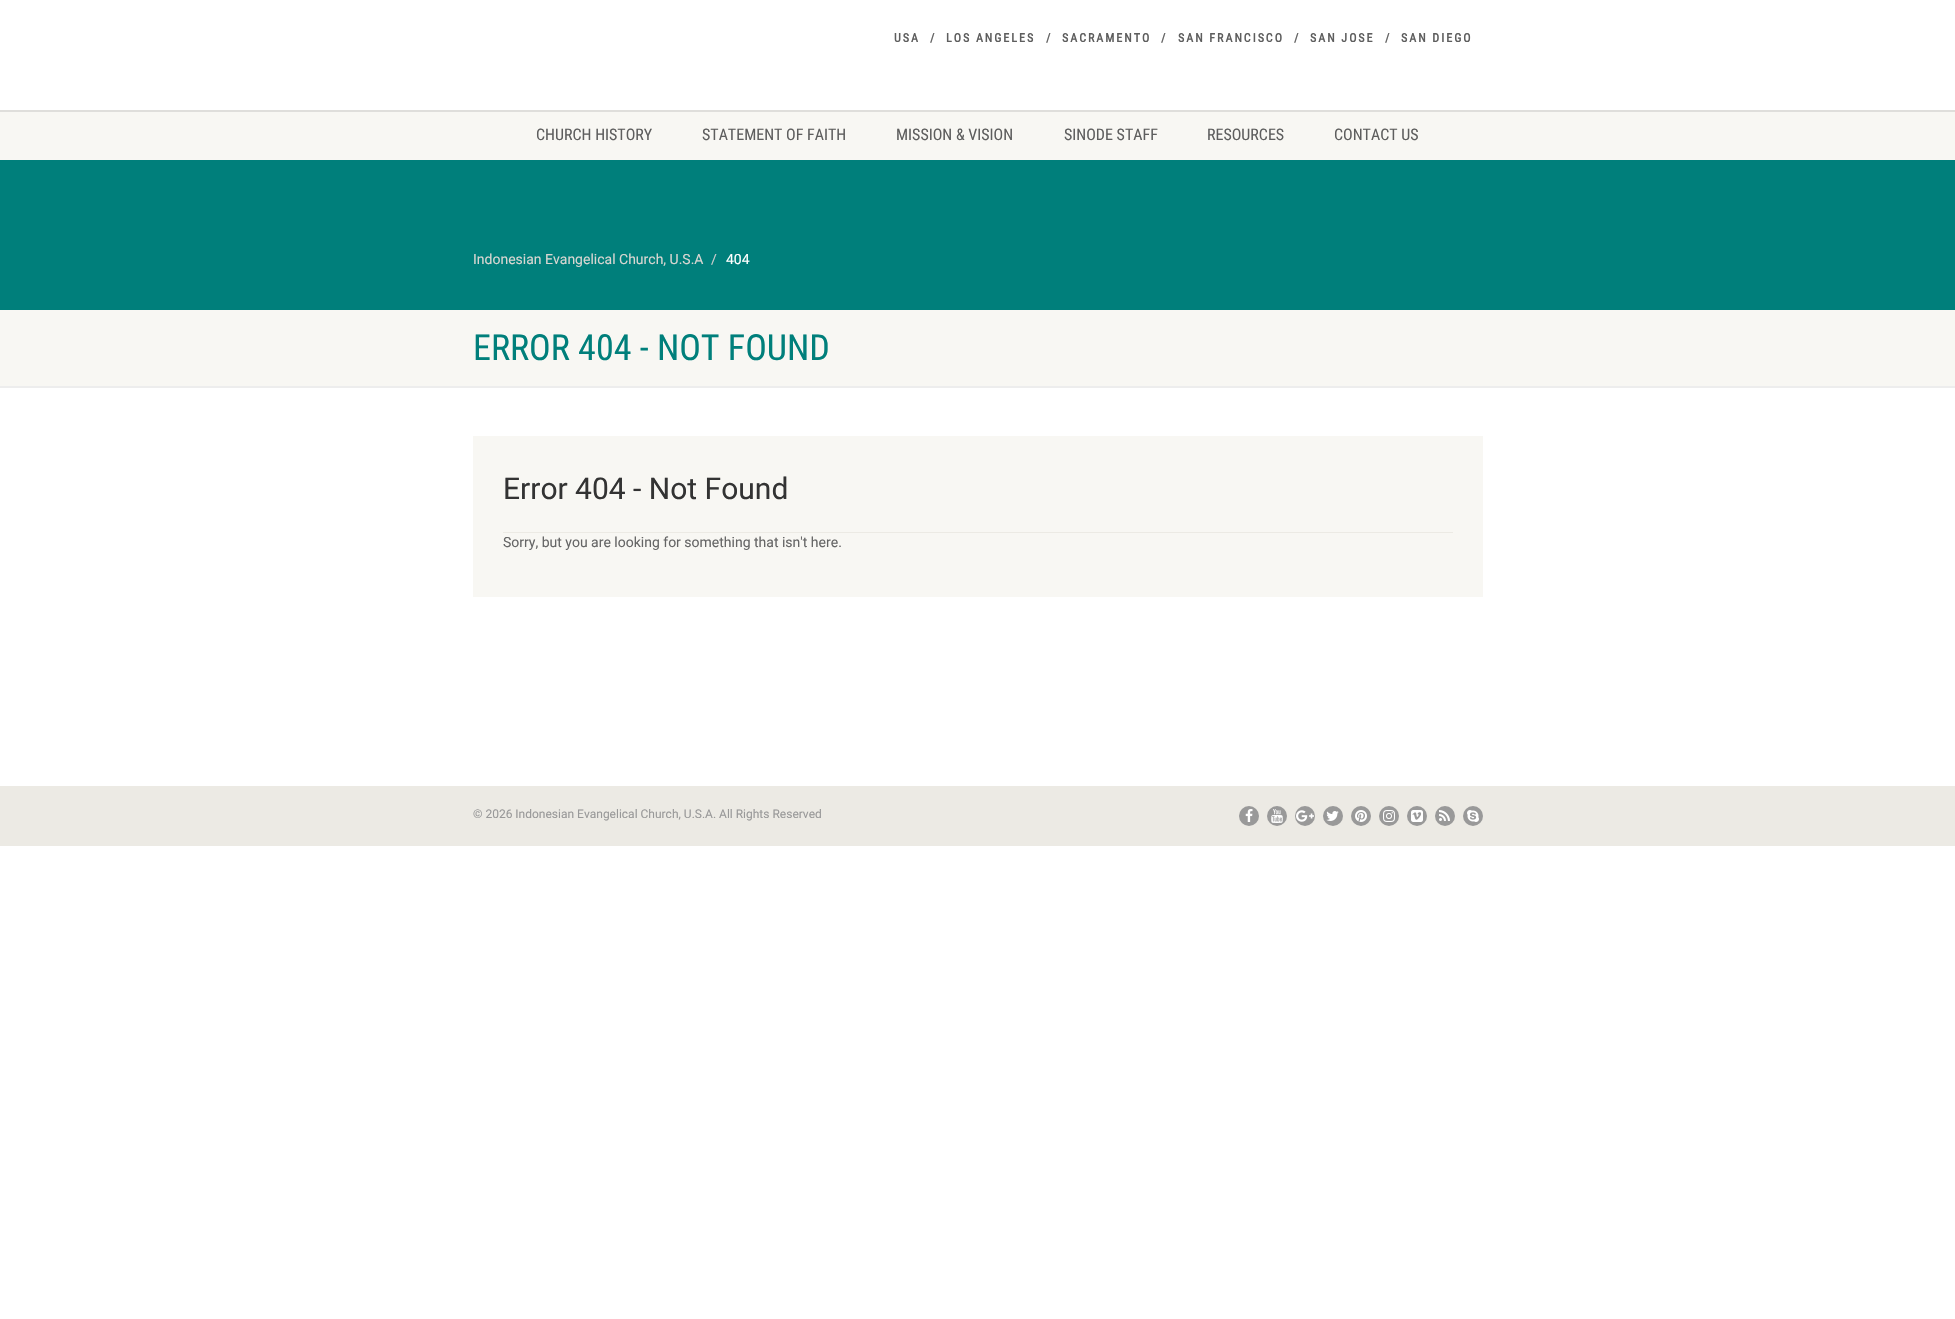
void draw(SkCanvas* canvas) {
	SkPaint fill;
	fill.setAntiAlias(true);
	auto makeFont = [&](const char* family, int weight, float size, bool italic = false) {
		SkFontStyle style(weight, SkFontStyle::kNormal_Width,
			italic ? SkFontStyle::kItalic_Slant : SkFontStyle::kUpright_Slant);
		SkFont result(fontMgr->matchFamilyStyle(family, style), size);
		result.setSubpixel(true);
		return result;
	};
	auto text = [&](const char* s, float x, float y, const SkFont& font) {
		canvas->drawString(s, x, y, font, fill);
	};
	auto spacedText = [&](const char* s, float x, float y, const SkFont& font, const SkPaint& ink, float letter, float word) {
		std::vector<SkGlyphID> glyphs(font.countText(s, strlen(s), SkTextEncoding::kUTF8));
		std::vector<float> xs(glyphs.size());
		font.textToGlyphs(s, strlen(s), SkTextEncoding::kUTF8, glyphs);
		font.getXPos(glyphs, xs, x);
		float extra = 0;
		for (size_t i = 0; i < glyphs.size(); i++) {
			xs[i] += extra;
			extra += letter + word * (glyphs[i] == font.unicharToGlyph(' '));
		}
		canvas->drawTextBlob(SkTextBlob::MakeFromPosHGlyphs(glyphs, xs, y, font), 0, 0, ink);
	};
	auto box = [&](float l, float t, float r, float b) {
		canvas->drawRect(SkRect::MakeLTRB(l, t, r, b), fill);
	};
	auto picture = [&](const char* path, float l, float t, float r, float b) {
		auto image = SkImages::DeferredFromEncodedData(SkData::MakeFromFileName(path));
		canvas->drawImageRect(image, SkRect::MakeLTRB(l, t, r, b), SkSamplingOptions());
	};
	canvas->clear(0xFFFFFFFF);
	fill.setColor(0xFFDFDEDB);
	box(0, 110, 1955, 112);
	fill.setColor(0xFFF8F7F3);
	box(0, 112, 1955, 160);
	fill.setColor(0xFF007F7B);
	box(0, 160, 1955, 310);
	fill.setColor(0xFFEDEDED);
	box(0, 386, 1955, 388);
	fill.setColor(0xFFF8F7F3);
	box(0, 310, 1955, 386);
	box(473, 436, 1483, 597);
	fill.setColor(0xFFECEAE4);
	box(503, 532, 1453, 533);
	box(0, 786, 1955, 846);
	fill.setColor(0xFF999999);
	canvas->drawCircle(1249, 816, 10, fill);
	picture("image0.png", 1245, 809, 1253, 822);
	canvas->drawCircle(1277, 816, 10, fill);
	picture("image1.png", 1271, 809, 1283, 823);
	canvas->drawCircle(1305, 816, 10, fill);
	picture("image2.png", 1296, 810, 1314, 822);
	canvas->drawCircle(1333, 816, 10, fill);
	picture("image3.png", 1326, 811, 1339, 821);
	canvas->drawCircle(1361, 816, 10, fill);
	picture("image4.png", 1355, 810, 1367, 822);
	canvas->drawCircle(1389, 816, 10, fill);
	picture("image5.png", 1383, 810, 1395, 822);
	canvas->drawCircle(1417, 816, 10, fill);
	picture("image6.png", 1411, 810, 1423, 822);
	canvas->drawCircle(1445, 816, 10, fill);
	picture("image7.png", 1439, 810, 1450, 821);
	canvas->drawCircle(1473, 816, 10, fill);
	picture("image8.png", 1467, 810, 1479, 822);
	auto font1 = makeFont("Roboto Condensed", 700, 12);
	fill.setColor(0xFF5E5E5E);
	spacedText("USA", 894, 42, font1, fill, 2, 0);
	fill.setColor(0xFF666666);
	spacedText("/", 930, 42, font1, fill, 2, 0);
	fill.setColor(0xFF5E5E5E);
	spacedText("LOS ANGELES", 946, 42, font1, fill, 2, 0);
	fill.setColor(0xFF666666);
	spacedText("/", 1046, 42, font1, fill, 2, 0);
	fill.setColor(0xFF5E5E5E);
	spacedText("SACRAMENTO", 1062, 42, font1, fill, 2, 0);
	fill.setColor(0xFF666666);
	spacedText("/", 1161, 42, font1, fill, 2, 0);
	fill.setColor(0xFF5E5E5E);
	spacedText("SAN FRANCISCO", 1178, 42, font1, fill, 2, 0);
	fill.setColor(0xFF666666);
	spacedText("/", 1294, 42, font1, fill, 2, 0);
	fill.setColor(0xFF5E5E5E);
	spacedText("SAN JOSE", 1310, 42, font1, fill, 2, 0);
	fill.setColor(0xFF666666);
	spacedText("/", 1385, 42, font1, fill, 2, 0);
	fill.setColor(0xFF5E5E5E);
	spacedText("SAN DIEGO", 1401, 42, font1, fill, 2, 0);
	auto font2 = makeFont("Roboto Condensed", 400, 16);
	text("CHURCH HISTORY", 536, 140, font2);
	text("STATEMENT OF FAITH", 702, 140, font2);
	text("MISSION & VISION", 896, 140, font2);
	text("SINODE STAFF", 1064, 140, font2);
	text("RESOURCES", 1207, 140, font2);
	text("CONTACT US", 1334, 140, font2);
	auto font3 = makeFont("Roboto", 400, 14);
	fill.setColor(0xFFD8D6D1);
	text("Indonesian Evangelical Church, U.S.A", 473, 264, font3);
	fill.setColor(0xFFCCCCCC);
	text("/", 711, 264, font3);
	fill.setColor(0xFFFFFFFF);
	text("404", 726, 264, font3);
	auto font4 = makeFont("Roboto Condensed", 400, 36);
	fill.setColor(0xFF007F7B);
	text("ERROR 404 - NOT FOUND", 473, 360, font4);
	auto font5 = makeFont("Roboto", 400, 30);
	fill.setColor(0xFF333333);
	text("Error 404 - Not Found", 503, 499, font5);
	fill.setColor(0xFF666666);
	text("Sorry, but you are looking for something that isn't here.", 503, 547, font3);
	auto font6 = makeFont("Roboto", 400, 12);
	fill.setColor(0xFF999999);
	text("© 2026 Indonesian Evangelical Church, U.S.A. All Rights Reserved", 473, 818, font6);
}
